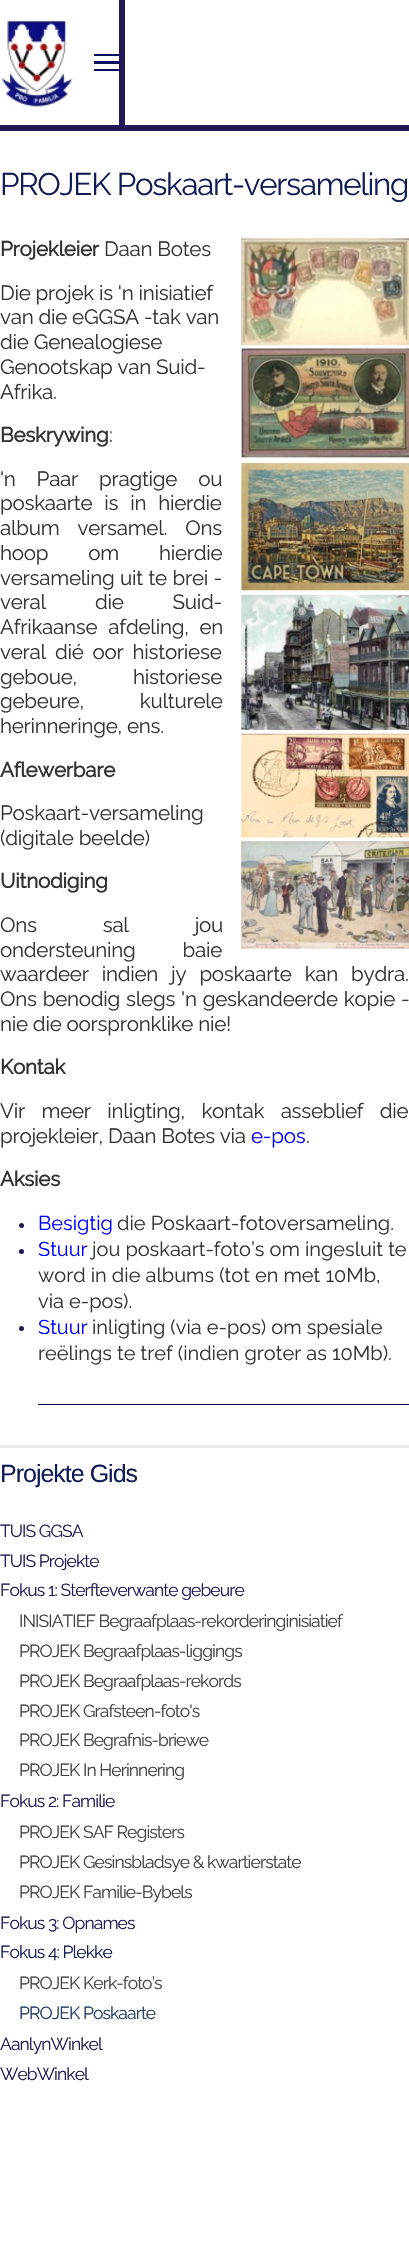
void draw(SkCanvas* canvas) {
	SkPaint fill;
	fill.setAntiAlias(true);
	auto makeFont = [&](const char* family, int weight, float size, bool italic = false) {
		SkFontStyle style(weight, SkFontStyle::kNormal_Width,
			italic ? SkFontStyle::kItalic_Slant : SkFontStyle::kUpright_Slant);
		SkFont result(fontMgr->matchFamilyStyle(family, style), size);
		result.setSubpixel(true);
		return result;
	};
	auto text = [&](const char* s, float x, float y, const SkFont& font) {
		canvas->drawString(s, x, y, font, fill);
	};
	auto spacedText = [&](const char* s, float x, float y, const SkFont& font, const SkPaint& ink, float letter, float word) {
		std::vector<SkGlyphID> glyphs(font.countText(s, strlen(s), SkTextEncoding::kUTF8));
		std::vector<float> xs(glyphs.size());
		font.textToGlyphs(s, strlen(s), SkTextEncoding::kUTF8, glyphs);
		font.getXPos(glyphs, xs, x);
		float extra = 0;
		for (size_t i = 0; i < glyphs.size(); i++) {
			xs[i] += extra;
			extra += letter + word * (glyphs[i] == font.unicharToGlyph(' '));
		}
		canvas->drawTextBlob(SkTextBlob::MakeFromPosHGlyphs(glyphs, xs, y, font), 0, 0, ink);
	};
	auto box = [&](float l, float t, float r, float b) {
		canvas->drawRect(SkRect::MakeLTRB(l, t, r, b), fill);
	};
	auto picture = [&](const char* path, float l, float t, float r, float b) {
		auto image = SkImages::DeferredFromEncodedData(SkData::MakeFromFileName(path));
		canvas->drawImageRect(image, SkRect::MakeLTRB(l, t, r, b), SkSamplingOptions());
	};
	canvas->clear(0xFFFFFFFF);
	fill.setColor(0xFF231756);
	box(0, 125, 409, 131);
	box(119, 0, 125, 125);
	picture("image0.png", 0, 19, 73, 107);
	fill.setColor(0xFF0B0F62);
	box(94, 54, 119, 56);
	box(94, 61, 119, 64);
	box(94, 69, 119, 71);
	picture("image1.png", 241, 237, 409, 949);
	fill.setColor(0xFF231756);
	canvas->drawCircle(21.5f, 1225.5f, 2.5f, fill);
	canvas->drawCircle(21.5f, 1251.5f, 2.5f, fill);
	canvas->drawCircle(21.5f, 1328.5f, 2.5f, fill);
	fill.setColor(0xFF050E4E);
	box(38, 1404, 409, 1405);
	fill.setColor(0xFFE8E8E8);
	box(0, 1445, 409, 1448);
	auto font1 = makeFont("Raleway", 100, 31.25f);
	fill.setColor(0xFF111B55);
	spacedText("PROJEK Poskaart-versameling", 0, 195, font1, fill, -1.25f, 0);
	auto font2 = makeFont("Raleway", 700, 20.6f);
	fill.setColor(0xFF333333);
	spacedText("Projekleier", 0, 256, font2, fill, -0.25f, 0);
	auto font3 = makeFont("Raleway", 100, 20.6f);
	spacedText("Daan Botes", 104, 256, font3, fill, -0.25f, 0);
	spacedText("Die projek is 'n inisiatief", 0, 300, font3, fill, -0.25f, 0);
	spacedText("van die eGGSA -tak van", 0, 324, font3, fill, -0.25f, 0);
	spacedText("die Genealogiese", 0, 349, font3, fill, -0.25f, 0);
	spacedText("Genootskap van Suid-", 0, 374, font3, fill, -0.25f, 0);
	spacedText("Afrika.", 0, 399, font3, fill, -0.25f, 0);
	spacedText("Beskrywing", 0, 442, font2, fill, -0.25f, 0);
	spacedText(":", 109, 442, font3, fill, -0.25f, 0);
	spacedText("'n Paar pragtige ou", 0, 486, font3, fill, -0.25f, 16);
	spacedText("poskaarte is in hierdie", 0, 510, font3, fill, -0.25f, 7);
	spacedText("album versamel. Ons", 0, 535, font3, fill, -0.25f, 13);
	spacedText("hoop om hierdie", 0, 560, font3, fill, -0.25f, 35);
	spacedText("versameling uit te brei -", 0, 585, font3, fill, -0.25f, 0.5f);
	spacedText("veral die Suid-", 0, 609, font3, fill, -0.25f, 44);
	spacedText("Afrikaanse afdeling, en", 0, 634, font3, fill, -0.25f, 6);
	spacedText("veral dié oor historiese", 0, 659, font3, fill, -0.25f, 4);
	spacedText("geboue, historiese", 0, 684, font3, fill, -0.25f, 51);
	spacedText("gebeure, kulturele", 0, 708, font3, fill, -0.25f, 51);
	spacedText("herinneringe, ens.", 0, 733, font3, fill, -0.25f, 0);
	spacedText("Aflewerbare", 0, 777, font2, fill, -0.25f, 0);
	spacedText("Poskaart-versameling", 0, 820, font3, fill, -0.25f, 0);
	spacedText("(digitale beelde)", 0, 845, font3, fill, -0.25f, 0);
	spacedText("Uitnodiging", 0, 888, font2, fill, -0.25f, 0);
	spacedText("Ons sal jou", 0, 932, font3, fill, -0.25f, 61);
	spacedText("ondersteuning baie", 0, 957, font3, fill, -0.25f, 42);
	spacedText("waardeer indien jy poskaarte kan bydra.", 0, 981, font3, fill, -0.25f, 8);
	spacedText("Ons benodig slegs 'n geskandeerde kopie -", 0, 1006, font3, fill, -0.25f, 1);
	spacedText("nie die oorspronklike nie!", 0, 1031, font3, fill, -0.25f, 0);
	spacedText("Kontak", 0, 1074, font2, fill, -0.25f, 0);
	spacedText("Vir meer inligting, kontak asseblief die", 0, 1118, font3, fill, -0.25f, 11.5f);
	spacedText("projekleier, Daan Botes via", 0, 1143, font3, fill, -0.25f, 0);
	fill.setColor(0xFF0000FF);
	spacedText("e-pos", 251, 1143, font3, fill, -0.25f, 0);
	fill.setColor(0xFF333333);
	spacedText(".", 306, 1143, font3, fill, -0.25f, 0);
	spacedText("Aksies", 0, 1186, font2, fill, -0.25f, 0);
	auto font4 = makeFont("Raleway", 100, 20);
	fill.setColor(0xFF0000FF);
	text("Besigtig", 38, 1230, font4);
	fill.setColor(0xFF333333);
	text("die Poskaart-fotoversameling.", 117, 1230, font4);
	fill.setColor(0xFF0000FF);
	text("Stuur", 38, 1256, font4);
	fill.setColor(0xFF333333);
	text("jou poskaart-foto’s om ingesluit te", 92, 1256, font4);
	text("word in die albums (tot en met 10Mb,", 38, 1282, font4);
	text("via e-pos).", 38, 1308, font4);
	fill.setColor(0xFF0000FF);
	text("Stuur", 38, 1334, font4);
	fill.setColor(0xFF333333);
	text("inligting (via e-pos) om spesiale", 92, 1334, font4);
	text("reëlings te tref (indien groter as 10Mb).", 38, 1360, font4);
	auto font5 = makeFont("Liberation Sans", 400, 25);
	fill.setColor(0xFF111B55);
	spacedText("Projekte Gids", 0, 1482, font5, fill, -1, 0);
	auto font6 = makeFont("Raleway", 100, 17.5f);
	fill.setColor(0xFF231756);
	spacedText("TUIS GGSA", 0, 1537, font6, fill, -0.9f, 0);
	spacedText("TUIS Projekte", 0, 1567, font6, fill, -0.9f, 0);
	spacedText("Fokus 1: Sterfteverwante gebeure", 0, 1596, font6, fill, -0.9f, 0);
	fill.setColor(0xFF424141);
	spacedText("INISIATIEF Begraafplaas-rekorderinginisiatief", 19, 1627, font6, fill, -0.9f, 0);
	spacedText("PROJEK Begraafplaas-liggings", 19, 1657, font6, fill, -0.9f, 0);
	spacedText("PROJEK Begraafplaas-rekords", 19, 1687, font6, fill, -0.9f, 0);
	spacedText("PROJEK Grafsteen-foto's", 19, 1717, font6, fill, -0.9f, 0);
	spacedText("PROJEK Begrafnis-briewe", 19, 1746, font6, fill, -0.9f, 0);
	spacedText("PROJEK In Herinnering", 19, 1776, font6, fill, -0.9f, 0);
	fill.setColor(0xFF231756);
	spacedText("Fokus 2: Familie", 0, 1807, font6, fill, -0.9f, 0);
	fill.setColor(0xFF424141);
	spacedText("PROJEK SAF Registers", 19, 1838, font6, fill, -0.9f, 0);
	spacedText("PROJEK Gesinsbladsye & kwartierstate", 19, 1868, font6, fill, -0.9f, 0);
	spacedText("PROJEK Familie-Bybels", 19, 1898, font6, fill, -0.9f, 0);
	fill.setColor(0xFF231756);
	spacedText("Fokus 3: Opnames", 0, 1929, font6, fill, -0.9f, 0);
	fill.setColor(0xFF111B55);
	spacedText("Fokus 4: Plekke", 0, 1958, font6, fill, -0.9f, 0);
	fill.setColor(0xFF424141);
	spacedText("PROJEK Kerk-foto’s", 19, 1989, font6, fill, -0.9f, 0);
	fill.setColor(0xFF233A64);
	spacedText("PROJEK Poskaarte", 19, 2019, font6, fill, -0.9f, 0);
	fill.setColor(0xFF231756);
	spacedText("AanlynWinkel", 0, 2050, font6, fill, -0.9f, 0);
	spacedText("WebWinkel", 0, 2080, font6, fill, -0.9f, 0);
}
